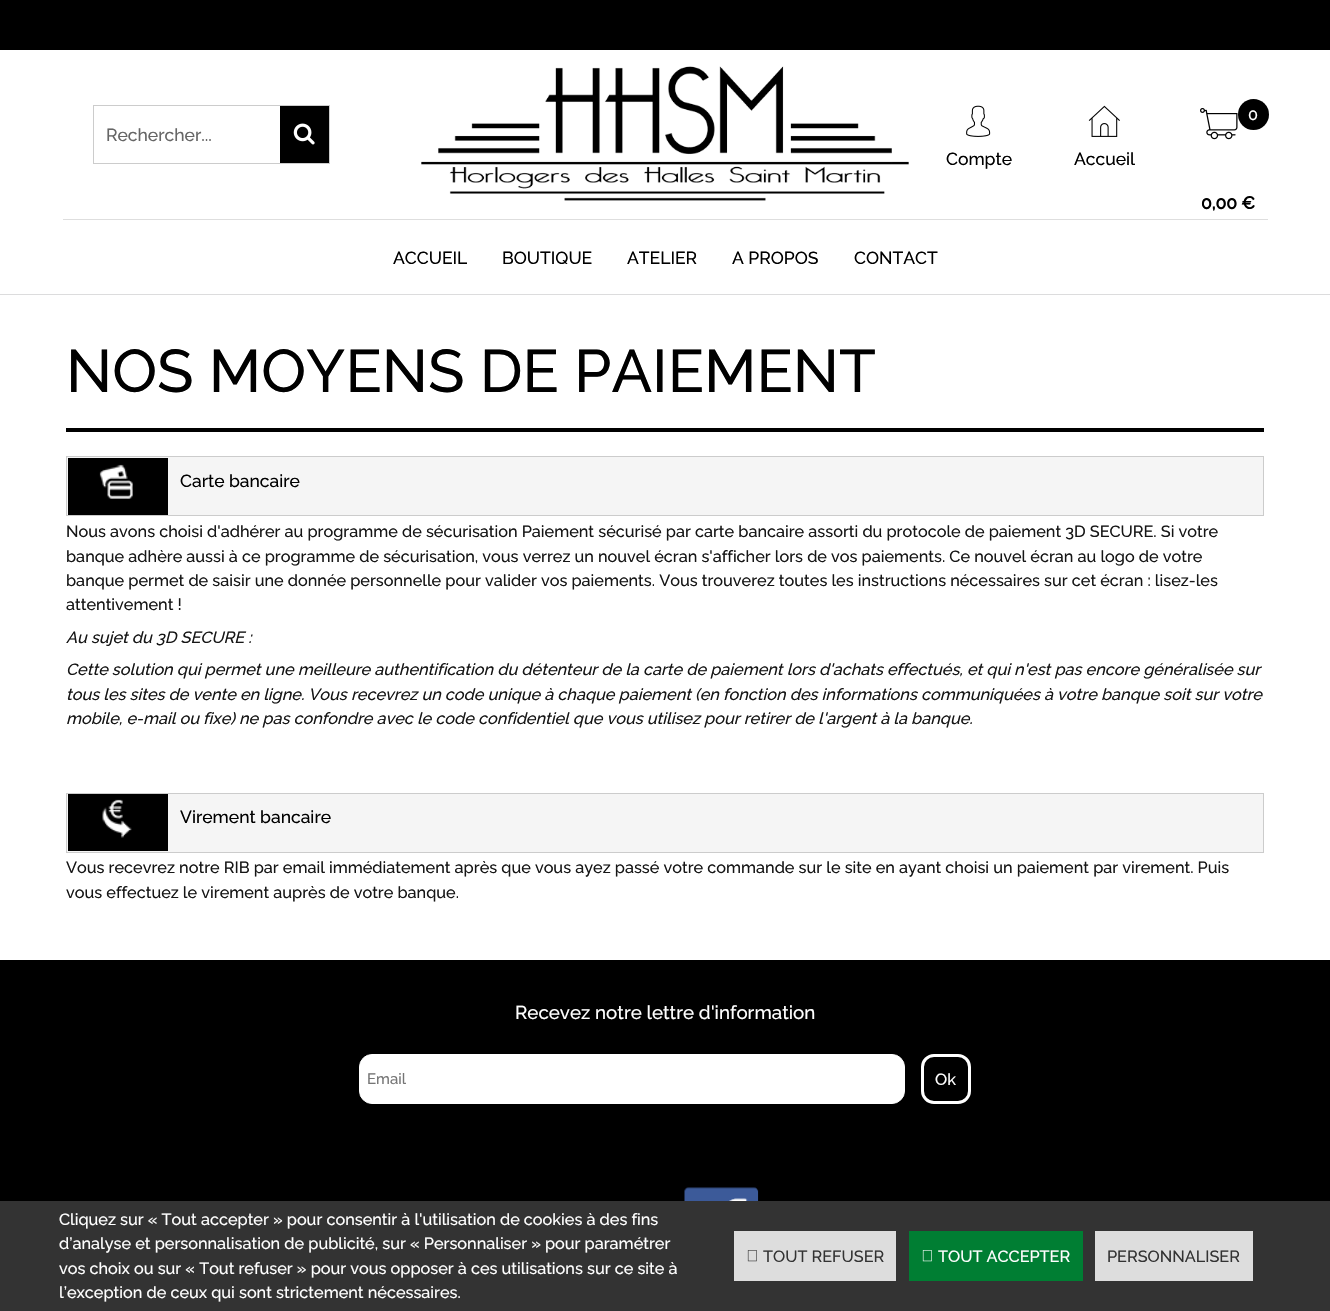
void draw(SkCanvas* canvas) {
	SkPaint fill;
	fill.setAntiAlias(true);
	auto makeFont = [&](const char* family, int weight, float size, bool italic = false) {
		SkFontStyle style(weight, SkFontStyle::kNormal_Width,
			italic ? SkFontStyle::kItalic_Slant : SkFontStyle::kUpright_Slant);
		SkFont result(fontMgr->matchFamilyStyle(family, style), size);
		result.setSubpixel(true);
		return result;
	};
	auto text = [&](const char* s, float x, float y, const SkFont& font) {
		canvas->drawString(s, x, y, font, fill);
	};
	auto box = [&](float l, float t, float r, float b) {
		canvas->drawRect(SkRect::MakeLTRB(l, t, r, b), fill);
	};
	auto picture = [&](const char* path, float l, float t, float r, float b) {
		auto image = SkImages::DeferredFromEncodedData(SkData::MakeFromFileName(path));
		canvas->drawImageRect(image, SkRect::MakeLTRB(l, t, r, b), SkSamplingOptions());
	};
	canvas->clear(0xFFFFFFFF);
	fill.setColor(0xFF000000);
	box(0, 0, 1330, 50);
	fill.setStyle(SkPaint::kStroke_Style);
	fill.setStrokeWidth(1);
	fill.setColor(0xFFCCCCCC);
	canvas->drawRect(SkRect::MakeLTRB(93.5f, 105.5f, 329.5f, 163.5f), fill);
	fill.setStyle(SkPaint::kFill_Style);
	fill.setColor(0xFF000000);
	box(280, 106, 329, 163);
	picture("image0.png", 293, 123, 315, 145);
	picture("image1.png", 421, 66, 909, 201);
	picture("image2.png", 966, 105, 991, 137);
	picture("image3.png", 1088, 105, 1120, 137);
	picture("image4.png", 1200, 108, 1238, 140);
	canvas->drawCircle(1253.5f, 114.5f, 15.5f, fill);
	fill.setColor(0xFFDCDCDD);
	box(0, 294, 1330, 295);
	fill.setColor(0xFFDEDEDE);
	box(63, 219, 1268, 220);
	fill.setColor(0xFF000000);
	box(66, 428, 1264, 432);
	fill.setColor(0xFFF5F5F5);
	canvas->drawRect(SkRect::MakeLTRB(66.5f, 456.5f, 1263.5f, 515.5f), fill);
	fill.setStyle(SkPaint::kStroke_Style);
	fill.setColor(0xFFCCCCCC);
	canvas->drawRect(SkRect::MakeLTRB(66.5f, 456.5f, 1263.5f, 515.5f), fill);
	fill.setStyle(SkPaint::kFill_Style);
	fill.setColor(0xFF000000);
	box(68, 458, 168, 515);
	picture("image5.png", 99, 464, 133, 499);
	fill.setColor(0xFFF5F5F5);
	canvas->drawRect(SkRect::MakeLTRB(66.5f, 793.5f, 1263.5f, 852.5f), fill);
	fill.setStyle(SkPaint::kStroke_Style);
	fill.setColor(0xFFCCCCCC);
	canvas->drawRect(SkRect::MakeLTRB(66.5f, 793.5f, 1263.5f, 852.5f), fill);
	fill.setStyle(SkPaint::kFill_Style);
	fill.setColor(0xFF000000);
	box(68, 794, 168, 851);
	picture("image6.png", 102, 799, 132, 838);
	box(0, 960, 1330, 1201);
	fill.setColor(0xFFFFFFFF);
	canvas->drawRoundRect(SkRect::MakeLTRB(359.5f, 1054.5f, 904.5f, 1103.5f), 12.5f, 12.5f, fill);
	fill.setStyle(SkPaint::kStroke_Style);
	canvas->drawRoundRect(SkRect::MakeLTRB(359.5f, 1054.5f, 904.5f, 1103.5f), 12.5f, 12.5f, fill);
	fill.setStrokeWidth(3);
	canvas->drawRoundRect(SkRect::MakeLTRB(922.5f, 1055.5f, 969.5f, 1102.5f), 11.5f, 11.5f, fill);
	picture("image7.png", 684, 1187, 759, 1201);
	fill.setStyle(SkPaint::kFill_Style);
	fill.setColor(0xFF333333);
	box(0, 1201, 1330, 1311);
	fill.setColor(0xFFDDDDDD);
	box(734, 1231, 896, 1281);
	picture("image8.png", 747, 1250, 757, 1262);
	fill.setColor(0xFF007E33);
	box(909, 1231, 1083, 1281);
	picture("image9.png", 922, 1250, 932, 1262);
	fill.setColor(0xFFDDDDDD);
	box(1095, 1231, 1253, 1281);
	auto font1 = makeFont("Raleway", 500, 17.5f);
	fill.setColor(0xFF666666);
	text("Rechercher...", 106, 141, font1);
	fill.setColor(0xFF000000);
	text("Compte", 946, 165, font1);
	text("Accueil", 1074, 165, font1);
	auto font2 = makeFont("Raleway", 500, 16.25f);
	fill.setColor(0xFFFFFFFF);
	text("0", 1248, 120, font2);
	auto font3 = makeFont("Raleway", 700, 17.5f);
	fill.setColor(0xFF000000);
	text("0,00 €", 1201, 209, font3);
	text("ACCUEIL", 393, 264, font1);
	text("BOUTIQUE", 502, 264, font1);
	text("ATELIER", 627, 264, font1);
	text("A PROPOS", 732, 264, font1);
	text("CONTACT", 854, 264, font1);
	auto font4 = makeFont("Raleway", 500, 60);
	text("NOS MOYENS DE PAIEMENT", 66, 392, font4);
	text("Carte bancaire", 180, 487, font1);
	fill.setColor(0xFF161616);
	text("Nous avons choisi d'adhérer au programme de sécurisation Paiement sécurisé par carte bancaire assorti du protocole de paiement 3D SECURE. Si votre", 66, 537, font2);
	text("banque adhère aussi à ce programme de sécurisation, vous verrez un nouvel écran s'afficher lors de vos paiements. Ce nouvel écran au logo de votre", 66, 562, font2);
	text("banque permet de saisir une donnée personnelle pour valider vos paiements. Vous trouverez toutes les instructions nécessaires sur cet écran : lisez-les", 66, 586, font2);
	text("attentivement !", 66, 610, font2);
	auto font5 = makeFont("Raleway", 500, 16.25f, true);
	text("Au sujet du 3D SECURE :", 66, 643, font5);
	text("Cette solution qui permet une meilleure authentification du détenteur de la carte de paiement lors d'achats effectués, et qui n'est pas encore généralisée sur", 66, 675, font5);
	text("tous les sites de vente en ligne. Vous recevrez un code unique à chaque paiement (en fonction des informations communiquées à votre banque soit sur votre", 66, 700, font5);
	text("mobile, e-mail ou fixe) ne pas confondre avec le code confidentiel que vous utilisez pour retirer de l'argent à la banque.", 66, 724, font5);
	fill.setColor(0xFF000000);
	text("Virement bancaire", 180, 823, font1);
	fill.setColor(0xFF161616);
	text("Vous recevrez notre RIB par email immédiatement après que vous ayez passé votre commande sur le site en ayant choisi un paiement par virement. Puis", 66, 873, font2);
	text("vous effectuez le virement auprès de votre banque.", 66, 898, font2);
	auto font6 = makeFont("Raleway", 500, 18.75f);
	fill.setColor(0xFFFFFFFF);
	text("Recevez notre lettre d'information", 515, 1019, font6);
	auto font7 = makeFont("Raleway", 500, 15);
	fill.setColor(0xFF757575);
	text("Email", 367, 1084, font7);
	fill.setColor(0xFFFFFFFF);
	text("Ok", 935, 1085, font2);
	text("Cliquez sur « Tout accepter » pour consentir à l'utilisation de cookies à des fins", 59, 1225, font2);
	text("d’analyse et personnalisation de publicité, sur « Personnaliser » pour paramétrer", 59, 1249, font2);
	text("vos choix ou sur « Tout refuser » pour vous opposer à ces utilisations sur ce site à", 59, 1274, font2);
	text("l’exception de ceux qui sont strictement nécessaires.", 59, 1298, font2);
	fill.setColor(0xFF333333);
	text("TOUT REFUSER", 763, 1262, font2);
	fill.setColor(0xFFFFFFFF);
	text("TOUT ACCEPTER", 938, 1262, font2);
	fill.setColor(0xFF333333);
	text("PERSONNALISER", 1107, 1262, font2);
}
